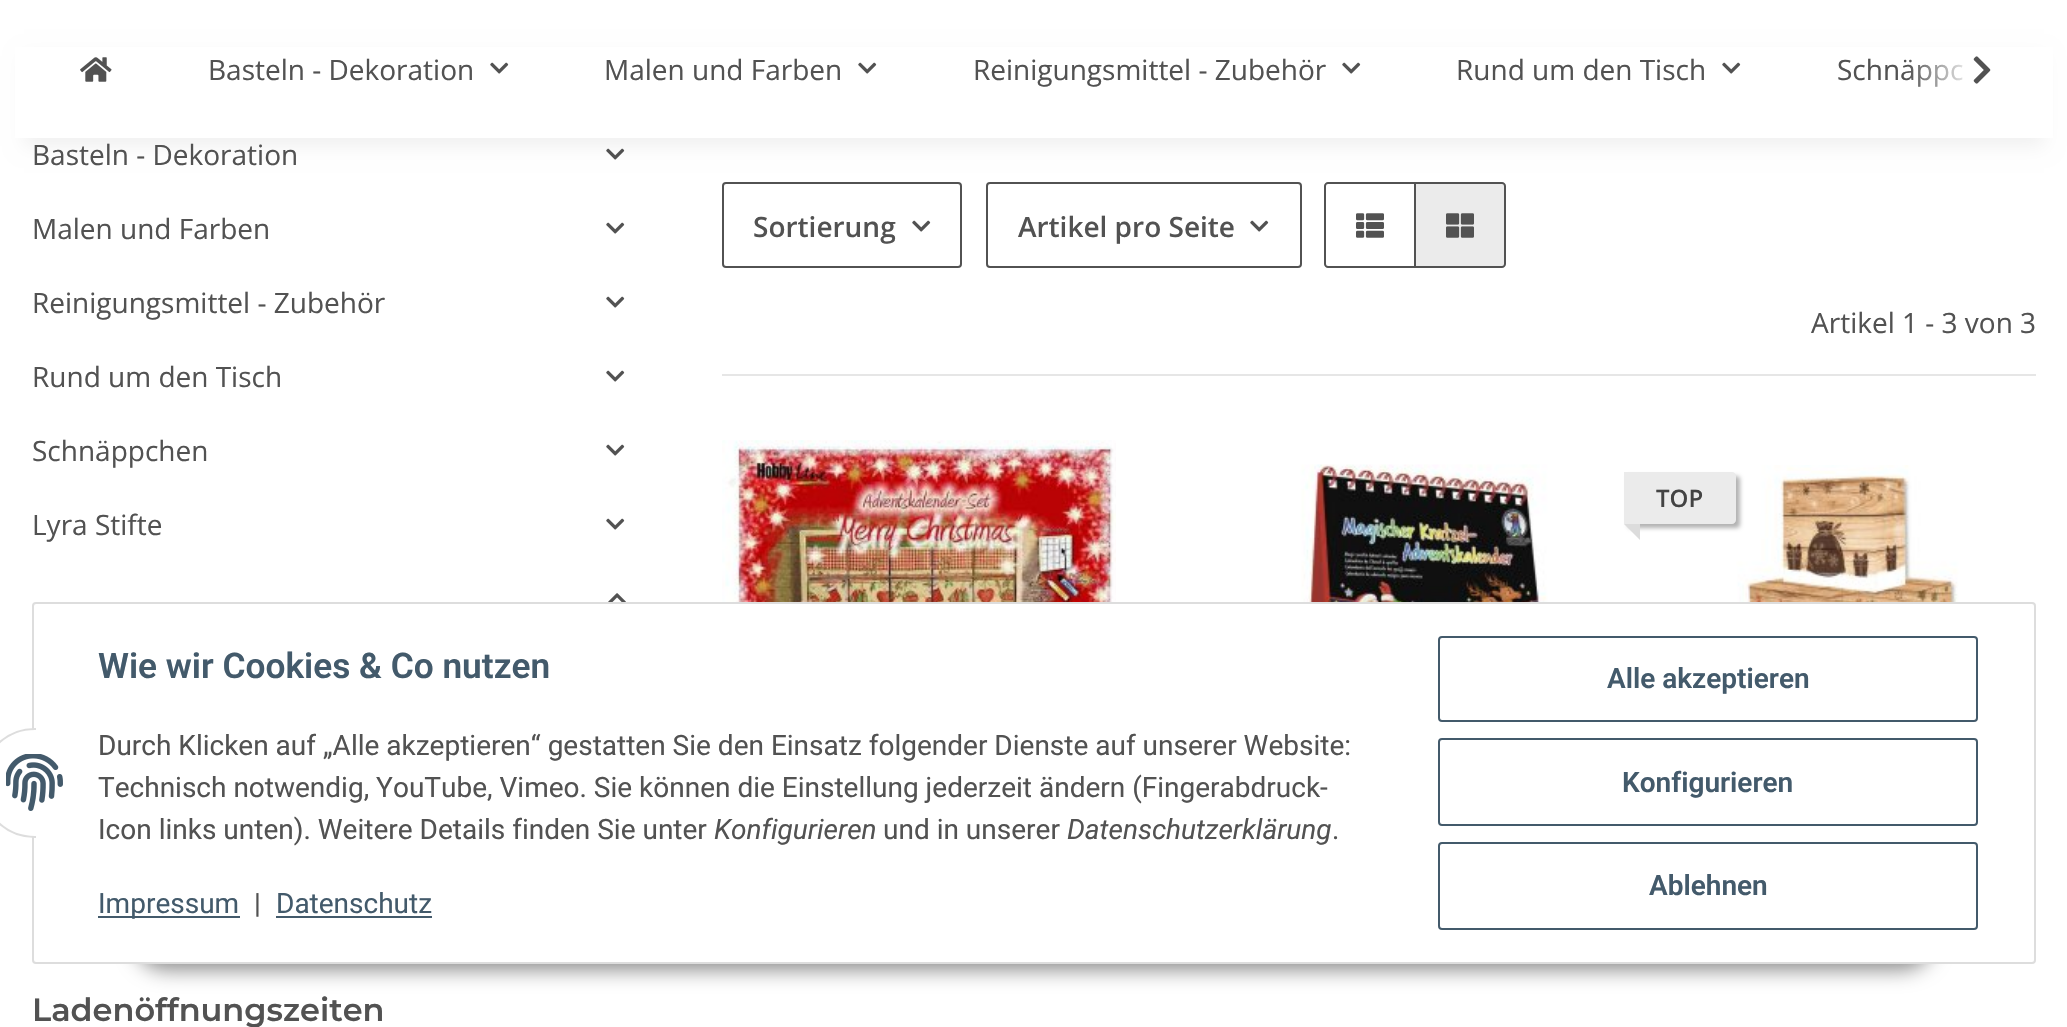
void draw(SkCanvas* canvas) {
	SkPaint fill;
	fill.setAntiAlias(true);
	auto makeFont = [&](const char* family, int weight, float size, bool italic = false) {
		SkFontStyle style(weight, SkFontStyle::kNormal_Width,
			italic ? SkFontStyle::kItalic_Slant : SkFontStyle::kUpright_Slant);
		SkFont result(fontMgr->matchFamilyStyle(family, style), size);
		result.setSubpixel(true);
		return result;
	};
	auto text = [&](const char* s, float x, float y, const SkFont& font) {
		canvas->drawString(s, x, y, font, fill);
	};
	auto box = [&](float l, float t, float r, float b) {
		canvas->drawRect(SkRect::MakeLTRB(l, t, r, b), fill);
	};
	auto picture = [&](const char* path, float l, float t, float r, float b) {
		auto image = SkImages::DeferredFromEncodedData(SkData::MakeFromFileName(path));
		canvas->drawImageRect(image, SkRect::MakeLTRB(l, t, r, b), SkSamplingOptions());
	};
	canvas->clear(0xFFFFFFFF);
	picture("image2.png", 606, 148, 625, 160);
	fill.setColor(0x0F000000);
	fill.setMaskFilter(SkMaskFilter::MakeBlur(kNormal_SkBlurStyle, 9));
	canvas->drawRect(SkRect::MakeLTRB(24, 56, 2044, 146), fill);
	fill.setMaskFilter(nullptr);
	fill.setColor(0xFFFFFFFF);
	box(15, 47, 2053, 138);
	picture("image0.png", 1973, 56, 1991, 84);
	picture("image1.png", 80, 57, 112, 82);
	picture("image2.png", 490, 62, 509, 74);
	picture("image2.png", 858, 62, 877, 74);
	picture("image2.png", 1342, 62, 1361, 74);
	picture("image2.png", 1722, 62, 1741, 74);
	picture("image2.png", 606, 222, 625, 234);
	picture("image2.png", 606, 296, 625, 308);
	picture("image2.png", 606, 370, 625, 382);
	picture("image2.png", 606, 444, 625, 456);
	picture("image2.png", 606, 518, 625, 530);
	picture("image3.png", 608, 593, 626, 602);
	fill.setStyle(SkPaint::kStroke_Style);
	fill.setStrokeWidth(2);
	fill.setColor(0xFF525252);
	canvas->drawRoundRect(SkRect::MakeLTRB(723, 183, 961, 267), 3, 3, fill);
	picture("image2.png", 912, 220, 931, 232);
	canvas->drawRoundRect(SkRect::MakeLTRB(987, 183, 1301, 267), 3, 3, fill);
	picture("image2.png", 1250, 220, 1269, 232);
	canvas->drawPath(SkPathBuilder().moveTo(1328, 183).lineTo(1415, 183).lineTo(1415, 267).lineTo(1328, 267).cubicTo(1326.5f, 267, 1325, 265.5f, 1325, 264).lineTo(1325, 186).cubicTo(1325, 184.5f, 1326.5f, 183, 1328, 183).close().detach(), fill);
	picture("image4.png", 1356, 213, 1384, 238);
	fill.setStyle(SkPaint::kFill_Style);
	fill.setColor(0xFFEBEBEB);
	canvas->drawPath(SkPathBuilder().moveTo(1415, 183).lineTo(1502, 183).cubicTo(1503.5f, 183, 1505, 184.5f, 1505, 186).lineTo(1505, 264).cubicTo(1505, 265.5f, 1503.5f, 267, 1502, 267).lineTo(1415, 267).close().detach(), fill);
	fill.setStyle(SkPaint::kStroke_Style);
	fill.setColor(0xFF525252);
	canvas->drawPath(SkPathBuilder().moveTo(1415, 183).lineTo(1502, 183).cubicTo(1503.5f, 183, 1505, 184.5f, 1505, 186).lineTo(1505, 264).cubicTo(1505, 265.5f, 1503.5f, 267, 1502, 267).lineTo(1415, 267).close().detach(), fill);
	picture("image5.png", 1446, 213, 1474, 238);
	fill.setStyle(SkPaint::kFill_Style);
	fill.setColor(0xFFE6E6E6);
	box(722, 374, 2036, 376);
	picture("image6.png", 722, 440, 1116, 602);
	picture("image7.png", 1212, 464, 1570, 602);
	picture("image8.png", 1701, 465, 2007, 602);
	fill.setColor(0x4D000000);
	fill.setMaskFilter(SkMaskFilter::MakeBlur(kNormal_SkBlurStyle, 2));
	canvas->drawRoundRect(SkRect::MakeLTRB(1628, 476, 1740, 528), 4, 4, fill);
	fill.setMaskFilter(nullptr);
	fill.setColor(0xFFEBEBEB);
	canvas->drawPath(SkPathBuilder().moveTo(1624, 472).lineTo(1732, 472).cubicTo(1734, 472, 1736, 474, 1736, 476).lineTo(1736, 520).cubicTo(1736, 522, 1734, 524, 1732, 524).lineTo(1624, 524).close().detach(), fill);
	fill.setColor(0xFFDCDCDC);
	canvas->drawPath(SkPathBuilder().moveTo(1640, 524).lineTo(1640, 540).lineTo(1624, 524).close().detach(), fill);
	fill.setColor(0x73000000);
	fill.setMaskFilter(SkMaskFilter::MakeBlur(kNormal_SkBlurStyle, 10));
	canvas->drawRoundRect(SkRect::MakeLTRB(134, 906, 1934, 970), 32, 32, fill);
	fill.setMaskFilter(nullptr);
	fill.setColor(0xFFFFFFFF);
	canvas->drawRoundRect(SkRect::MakeLTRB(33, 603, 2035, 963), 3, 3, fill);
	fill.setStyle(SkPaint::kStroke_Style);
	fill.setColor(0xFFDDDDDD);
	canvas->drawRoundRect(SkRect::MakeLTRB(33, 603, 2035, 963), 3, 3, fill);
	fill.setStyle(SkPaint::kFill_Style);
	fill.setColor(0xFFFFFFFF);
	canvas->drawCircle(35, 783, 54, fill);
	fill.setStyle(SkPaint::kStroke_Style);
	fill.setColor(0xFFDDDDDD);
	canvas->drawCircle(35, 783, 54, fill);
	fill.setStyle(SkPaint::kFill_Style);
	fill.setColor(0xFFFFFFFF);
	box(36, 728, 90, 838);
	picture("image9.png", 6, 754, 63, 811);
	fill.setColor(0xFF435A6B);
	box(98, 916, 240, 918);
	box(276, 916, 432, 918);
	fill.setStyle(SkPaint::kStroke_Style);
	canvas->drawRoundRect(SkRect::MakeLTRB(1439, 637, 1977, 721), 3, 3, fill);
	canvas->drawRoundRect(SkRect::MakeLTRB(1439, 739, 1977, 825), 3, 3, fill);
	canvas->drawRoundRect(SkRect::MakeLTRB(1439, 843, 1977, 929), 3, 3, fill);
	auto font1 = makeFont("Open Sans", 400, 28);
	fill.setStyle(SkPaint::kFill_Style);
	fill.setColor(0xFF525252);
	text("Basteln - Dekoration", 208, 80, font1);
	text("Malen und Farben", 604, 80, font1);
	text("Reinigungsmittel - Zubehör", 973, 80, font1);
	text("Rund um den Tisch", 1456, 80, font1);
	text("Schnäppc", 1837, 80, font1);
	{
		const SkColor colors[] = {0x03FFFFFF, 0xFFFFFFFF};
		const float stops[] = {0, 0.7f};
		const SkPoint ends[] = {{1908, 70}, {2004, 70}};
		fill.setShader(SkGradientShader::MakeLinear(ends, colors, stops, 2, SkTileMode::kClamp));
		fill.setAlpha(255);
	}
	box(1909, 60, 1963, 87);
	fill.setShader(nullptr);
	fill.setColor(0xFF525252);
	text("Basteln - Dekoration", 32, 165, font1);
	text("Malen und Farben", 32, 239, font1);
	text("Reinigungsmittel - Zubehör", 32, 313, font1);
	text("Rund um den Tisch", 32, 387, font1);
	text("Schnäppchen", 32, 461, font1);
	text("Lyra Stifte", 32, 535, font1);
	auto font2 = makeFont("Montserrat", 600, 32);
	text("Ladenöffnungszeiten", 32, 1021, font2);
	auto font3 = makeFont("Open Sans", 600, 28);
	text("Sortierung", 753, 237, font3);
	text("Artikel pro Seite", 1018, 237, font3);
	text("Artikel 1 - 3 von 3", 1811, 333, font1);
	auto font4 = makeFont("Open Sans", 600, 24);
	fill.setColor(0xFF434343);
	text("TOP", 1656, 507, font4);
	auto font5 = makeFont("Roboto", 600, 35.25f);
	fill.setColor(0xFF435A6B);
	text("Wie wir Cookies & Co nutzen", 98, 678, font5);
	auto font6 = makeFont("Roboto", 400, 28);
	fill.setColor(0xFF525252);
	text("Durch Klicken auf „Alle akzeptieren“ gestatten Sie den Einsatz folgender Dienste auf unserer Website:", 98, 755, font6);
	text("Technisch notwendig, YouTube, Vimeo. Sie können die Einstellung jederzeit ändern (Fingerabdruck-", 98, 797, font6);
	text("Icon links unten). Weitere Details finden Sie unter", 98, 839, font6);
	auto font7 = makeFont("Roboto", 400, 28, true);
	text("Konfigurieren", 714, 839, font7);
	text("und in unserer", 883, 839, font6);
	text("Datenschutzerklärung", 1067, 839, font7);
	text(".", 1332, 839, font6);
	fill.setColor(0xFF435A6B);
	text("Impressum", 98, 913, font6);
	fill.setColor(0xFF525252);
	text("|", 254, 913, font6);
	fill.setColor(0xFF435A6B);
	text("Datenschutz", 276, 913, font6);
	auto font8 = makeFont("Roboto", 600, 28);
	text("Alle akzeptieren", 1607, 688, font8);
	text("Konfigurieren", 1622, 792, font8);
	text("Ablehnen", 1649, 895, font8);
}
